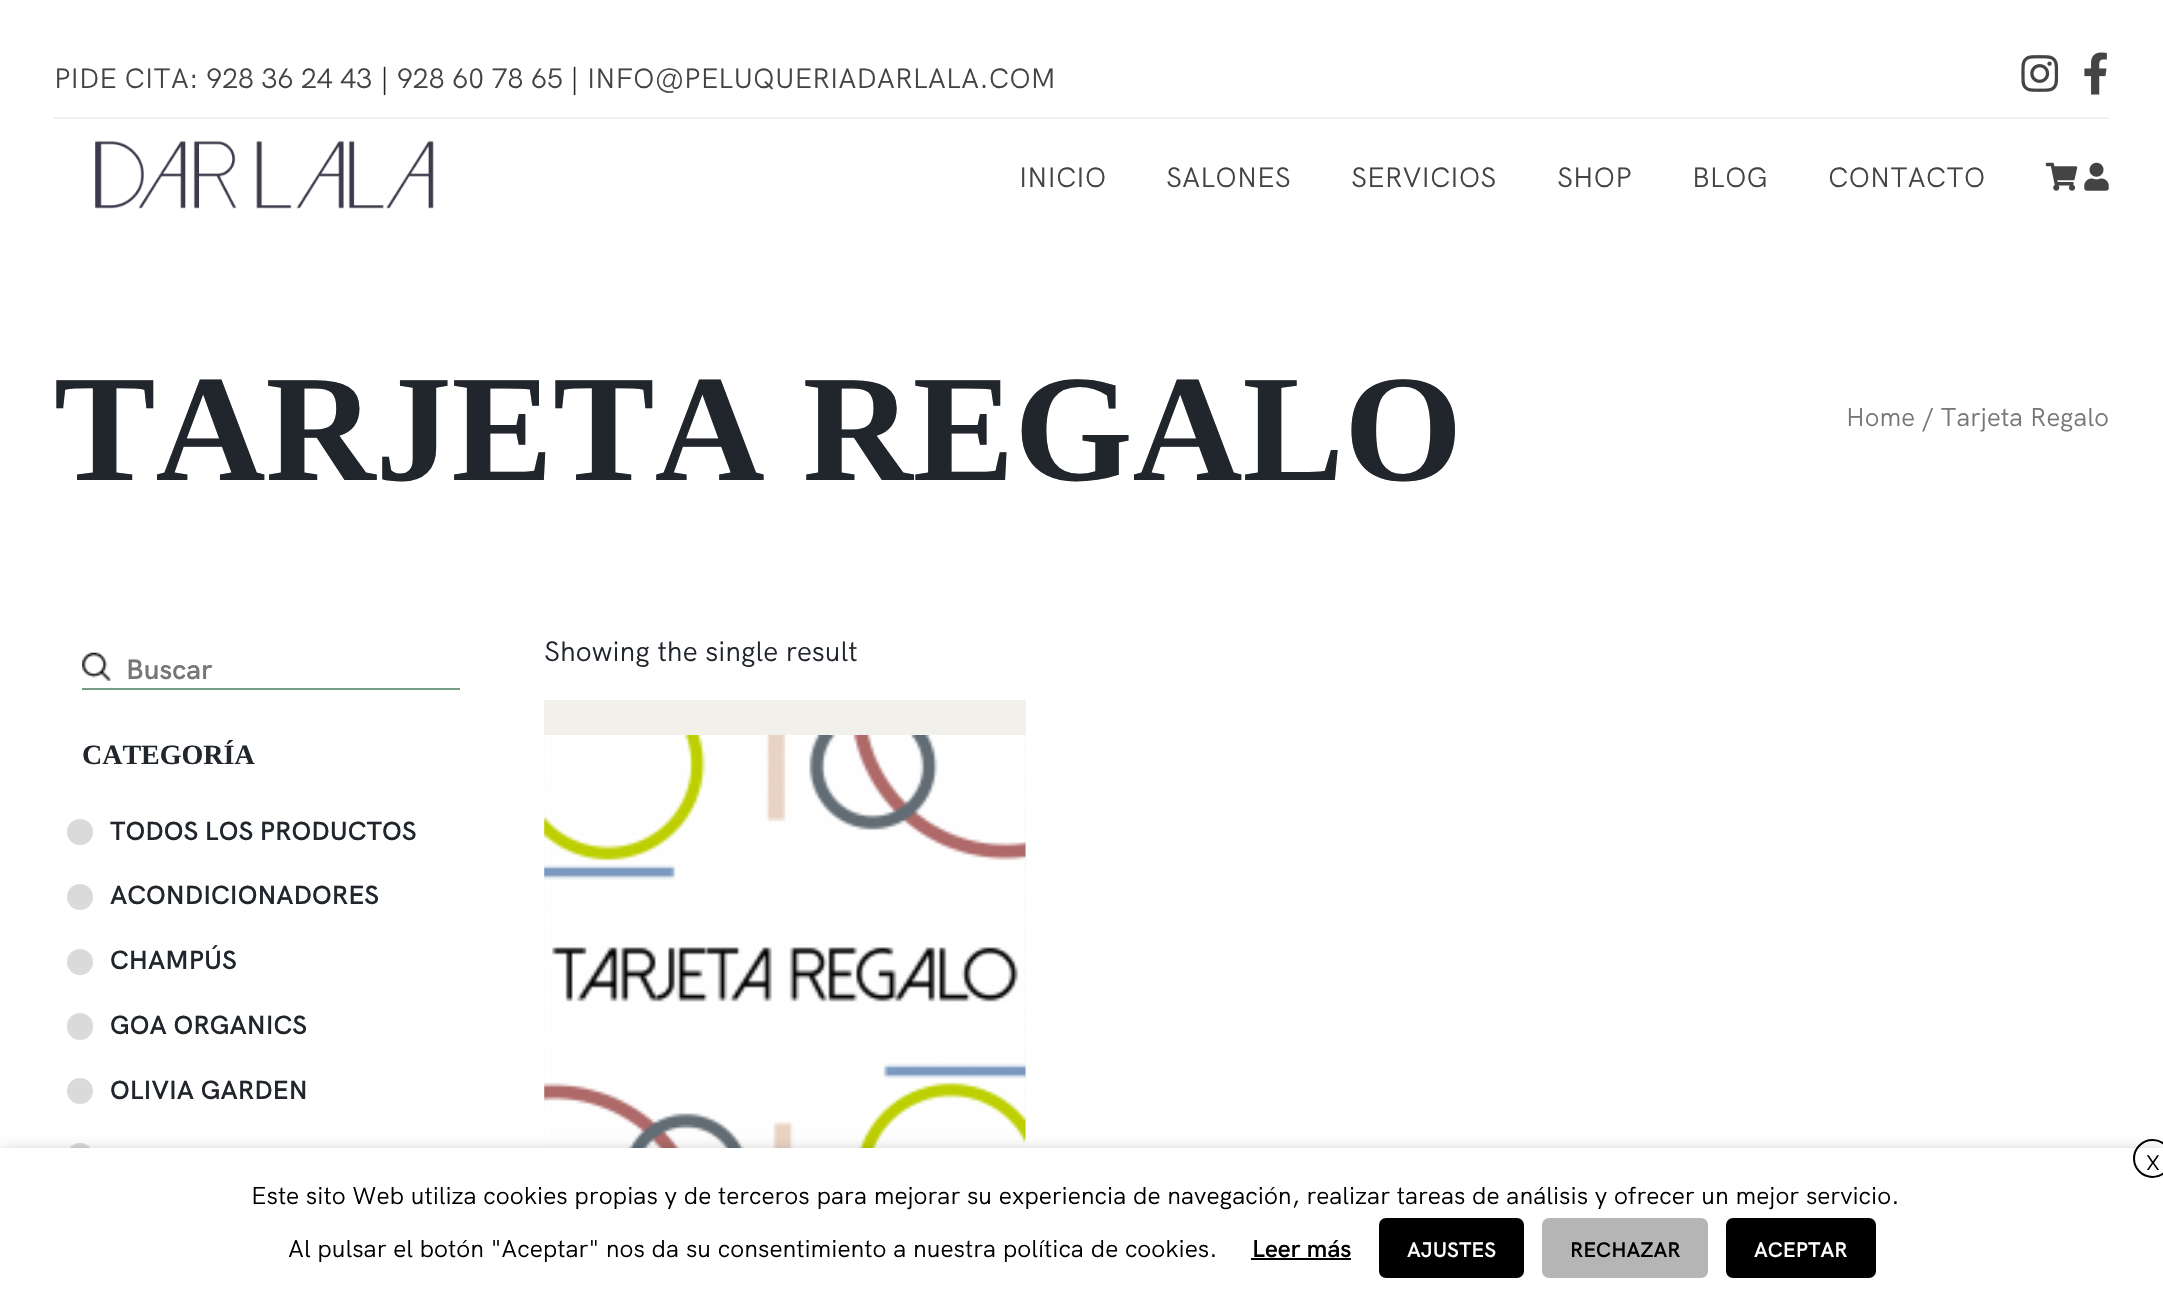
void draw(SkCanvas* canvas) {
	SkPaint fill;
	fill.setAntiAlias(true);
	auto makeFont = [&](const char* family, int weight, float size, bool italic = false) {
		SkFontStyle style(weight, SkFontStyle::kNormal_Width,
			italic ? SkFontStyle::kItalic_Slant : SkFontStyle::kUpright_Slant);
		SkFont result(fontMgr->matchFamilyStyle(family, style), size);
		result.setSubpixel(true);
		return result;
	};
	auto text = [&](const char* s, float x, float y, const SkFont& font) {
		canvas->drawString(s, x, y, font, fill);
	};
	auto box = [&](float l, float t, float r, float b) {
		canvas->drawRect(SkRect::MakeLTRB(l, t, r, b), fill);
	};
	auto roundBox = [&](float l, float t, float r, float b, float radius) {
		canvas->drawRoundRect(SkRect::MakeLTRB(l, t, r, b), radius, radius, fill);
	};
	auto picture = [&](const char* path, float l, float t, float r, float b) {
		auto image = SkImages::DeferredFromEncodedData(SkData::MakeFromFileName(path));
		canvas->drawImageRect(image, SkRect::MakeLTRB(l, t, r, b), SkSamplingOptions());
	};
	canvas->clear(0xFFFFFFFF);
	fill.setColor(0xFFF1F0EB);
	box(54, 117, 2109, 119);
	picture("image0.png", 2021, 55, 2059, 92);
	picture("image1.png", 2084, 52, 2107, 95);
	picture("image2.png", 95, 140, 434, 209);
	picture("image3.png", 2045, 162, 2078, 191);
	picture("image4.png", 2084, 162, 2109, 191);
	box(544, 700, 1026, 1138);
	picture("image5.png", 544, 735, 1026, 1148);
	picture("image6.png", 82, 652, 111, 681);
	fill.setColor(0xFF759D85);
	box(82, 688, 460, 690);
	fill.setColor(0xFFDADADA);
	canvas->drawCircle(80, 832, 13, fill);
	canvas->drawCircle(80, 897, 13, fill);
	canvas->drawCircle(80, 962, 13, fill);
	roundBox(67, 1013, 93, 1040, 13);
	canvas->drawCircle(80, 1091, 13, fill);
	canvas->drawCircle(80, 1156, 13, fill);
	fill.setColor(0x80000000);
	fill.setMaskFilter(SkMaskFilter::MakeBlur(kNormal_SkBlurStyle, 9));
	canvas->drawRect(SkRect::MakeLTRB(0, 1157, 2163, 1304), fill);
	fill.setMaskFilter(nullptr);
	fill.setColor(0xFFFFFFFF);
	box(0, 1148, 2163, 1295);
	fill.setStyle(SkPaint::kStroke_Style);
	fill.setStrokeWidth(2);
	fill.setColor(0xFF000000);
	canvas->drawCircle(2152.5f, 1158.5f, 18.5f, fill);
	fill.setStyle(SkPaint::kFill_Style);
	box(1251, 1258, 1351, 1260);
	roundBox(1379, 1218, 1524, 1278, 7);
	fill.setColor(0xFFB5B5B5);
	roundBox(1542, 1218, 1708, 1278, 7);
	fill.setColor(0xFF000000);
	roundBox(1726, 1218, 1876, 1278, 7);
	auto font1 = makeFont("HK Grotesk", 400, 28);
	fill.setColor(0xFF444444);
	text("PIDE CITA: 928 36 24 43", 54, 88, font1);
	fill.setColor(0xFF21262D);
	text("|", 380, 88, font1);
	fill.setColor(0xFF444444);
	text("928 60 78 65", 397, 88, font1);
	fill.setColor(0xFF21262D);
	text("|", 570, 88, font1);
	fill.setColor(0xFF444444);
	text("INFO@PELUQUERIADARLALA.COM", 587, 88, font1);
	text("INICIO", 1019, 187, font1);
	text("SALONES", 1166, 187, font1);
	text("SERVICIOS", 1351, 187, font1);
	text("SHOP", 1557, 187, font1);
	text("BLOG", 1692, 187, font1);
	text("CONTACTO", 1828, 187, font1);
	auto font2 = makeFont("Liberation Serif", 700, 152.25f);
	fill.setColor(0xFF21262D);
	text("TARJETA REGALO", 54, 480, font2);
	auto font3 = makeFont("HK Grotesk", 400, 25.75f);
	fill.setColor(0xFF767676);
	text("Home / Tarjeta Regalo", 1846, 426, font3);
	fill.setColor(0xFF21262D);
	text("Showing the single result", 544, 661, font1);
	auto font4 = makeFont("HK Grotesk", 600, 28);
	fill.setColor(0xFF767676);
	text("Buscar", 126, 679, font4);
	auto font5 = makeFont("Liberation Serif", 700, 28);
	fill.setColor(0xFF21262D);
	text("CATEGORÍA", 82, 764, font5);
	auto font6 = makeFont("HK Grotesk", 600, 26.25f);
	text("TODOS LOS PRODUCTOS", 110, 840, font6);
	text("ACONDICIONADORES", 110, 904, font6);
	text("CHAMPÚS", 110, 969, font6);
	text("GOA ORGANICS", 110, 1034, font6);
	text("OLIVIA GARDEN", 110, 1099, font6);
	auto font7 = makeFont("HK Grotesk", 400, 21);
	fill.setColor(0xFF000000);
	text("X", 2146, 1170, font7);
	auto font8 = makeFont("HK Grotesk", 400, 24.5f);
	text("Este sito Web utiliza cookies propias y de terceros para mejorar su experiencia de navegación, realizar tareas de análisis y ofrecer un mejor servicio.", 251, 1204, font8);
	text("Al pulsar el botón \"Aceptar\" nos da su consentimiento a nuestra política de cookies.", 288, 1257, font8);
	auto font9 = makeFont("HK Grotesk", 600, 24.5f);
	text("Leer más", 1252, 1257, font9);
	auto font10 = makeFont("HK Grotesk", 600, 21);
	fill.setColor(0xFFFFFFFF);
	text("AJUSTES", 1407, 1257, font10);
	fill.setColor(0xFF000000);
	text("RECHAZAR", 1570, 1257, font10);
	fill.setColor(0xFFFFFFFF);
	text("ACEPTAR", 1754, 1257, font10);
}
